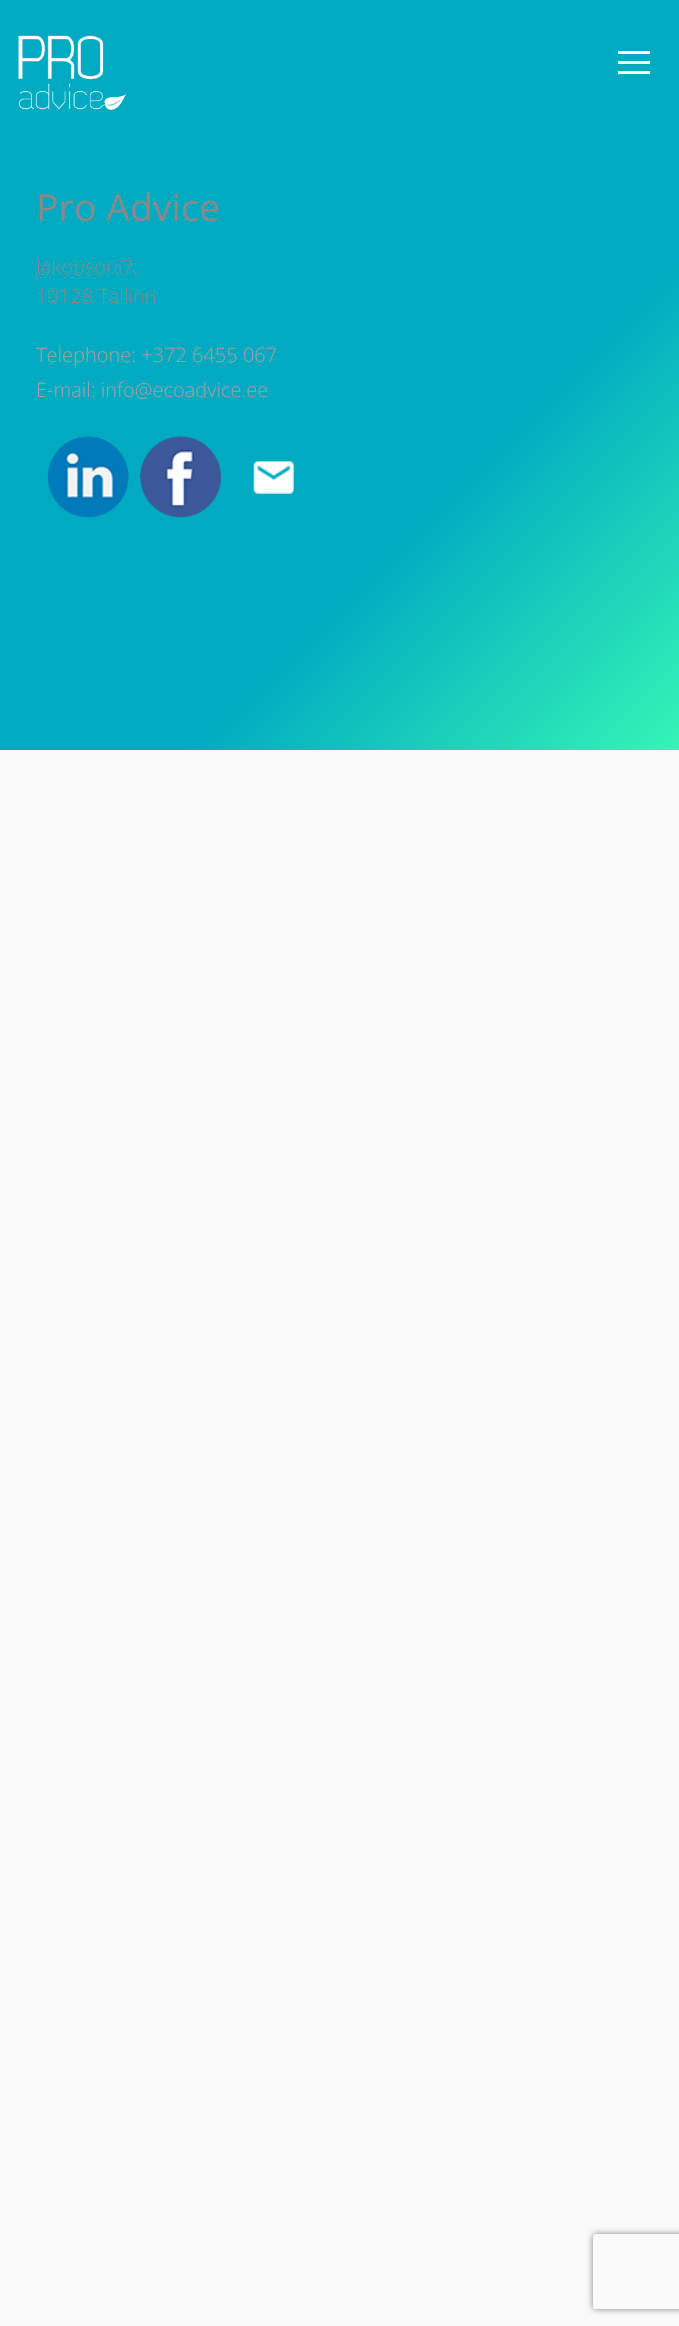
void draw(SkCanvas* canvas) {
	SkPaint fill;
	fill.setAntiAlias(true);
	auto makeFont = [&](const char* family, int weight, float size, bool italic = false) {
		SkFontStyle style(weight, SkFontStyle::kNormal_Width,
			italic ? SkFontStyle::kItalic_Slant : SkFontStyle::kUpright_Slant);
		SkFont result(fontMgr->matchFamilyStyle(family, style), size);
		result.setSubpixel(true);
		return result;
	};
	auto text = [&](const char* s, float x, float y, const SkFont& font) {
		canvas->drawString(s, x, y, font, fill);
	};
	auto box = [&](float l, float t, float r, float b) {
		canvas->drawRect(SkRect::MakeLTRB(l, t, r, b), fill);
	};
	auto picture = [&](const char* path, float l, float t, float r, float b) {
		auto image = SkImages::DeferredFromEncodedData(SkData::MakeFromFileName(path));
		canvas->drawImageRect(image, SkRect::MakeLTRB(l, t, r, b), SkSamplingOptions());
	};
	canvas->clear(0xFFFAFAFA);
	{
		const SkColor colors[] = {0xFF00AAC1, 0xFF00AAC1, 0xFF35F5B5};
		const float stops[] = {0, 0.65f, 1};
		const SkPoint ends[] = {{-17, 18}, {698, 733}};
		fill.setShader(SkGradientShader::MakeLinear(ends, colors, stops, 3, SkTileMode::kClamp));
		fill.setAlpha(255);
	}
	box(0, 0, 679, 750);
	picture("image0.png", 18, 35, 127, 110);
	fill.setShader(nullptr);
	fill.setColor(0xFFFFFFFF);
	box(618, 51, 650, 54);
	box(618, 61, 650, 64);
	box(618, 71, 650, 74);
	picture("image1.png", 47, 436, 129, 518);
	picture("image2.png", 140, 436, 222, 518);
	picture("image3.png", 253, 461, 294, 494);
	canvas->save();
	canvas->clipPath(SkPathBuilder(SkPathFillType::kEvenOdd).moveTo(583, 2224).lineTo(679, 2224).lineTo(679, 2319).lineTo(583, 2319).close().moveTo(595.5f, 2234).lineTo(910.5f, 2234).cubicTo(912, 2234, 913, 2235, 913, 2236.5f).lineTo(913, 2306.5f).cubicTo(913, 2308, 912, 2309, 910.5f, 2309).lineTo(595.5f, 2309).cubicTo(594, 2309, 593, 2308, 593, 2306.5f).lineTo(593, 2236.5f).cubicTo(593, 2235, 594, 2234, 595.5f, 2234).close().detach(), true);
	fill.setColor(0xFF808080);
	fill.setMaskFilter(SkMaskFilter::MakeBlur(kNormal_SkBlurStyle, 3));
	canvas->drawRoundRect(SkRect::MakeLTRB(593, 2234, 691, 2309), 2.5f, 2.5f, fill);
	fill.setMaskFilter(nullptr);
	canvas->restore();
	auto font1 = makeFont("Open Sans", 400, 37.5f);
	fill.setColor(0xFF898989);
	text("Pro Advice", 36, 221, font1);
	auto font2 = makeFont("Open Sans", 300, 20);
	text("Jakobsoni7,", 36, 274, font2);
	text("10128 Tallinn", 36, 303, font2);
	fill.setColor(0xFFA1A1A1);
	text("Telephone: +372 6455 067", 36, 362, font2);
	text("E-mail: info@ecoadvice.ee", 36, 397, font2);
}
